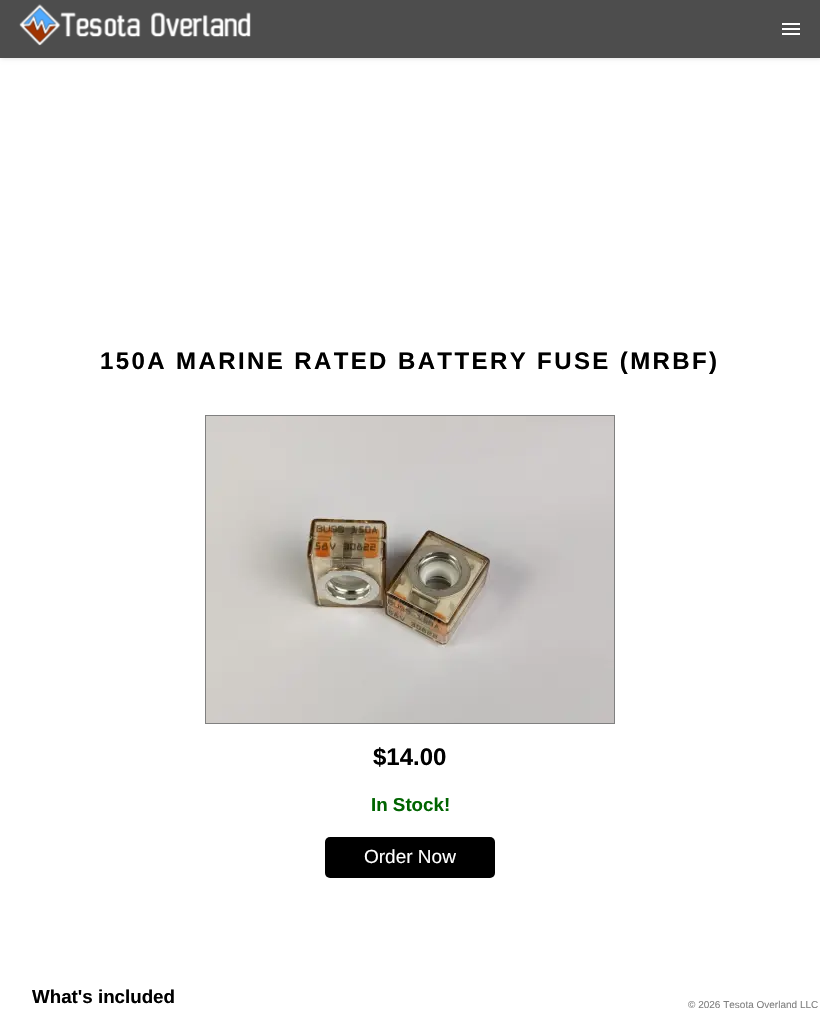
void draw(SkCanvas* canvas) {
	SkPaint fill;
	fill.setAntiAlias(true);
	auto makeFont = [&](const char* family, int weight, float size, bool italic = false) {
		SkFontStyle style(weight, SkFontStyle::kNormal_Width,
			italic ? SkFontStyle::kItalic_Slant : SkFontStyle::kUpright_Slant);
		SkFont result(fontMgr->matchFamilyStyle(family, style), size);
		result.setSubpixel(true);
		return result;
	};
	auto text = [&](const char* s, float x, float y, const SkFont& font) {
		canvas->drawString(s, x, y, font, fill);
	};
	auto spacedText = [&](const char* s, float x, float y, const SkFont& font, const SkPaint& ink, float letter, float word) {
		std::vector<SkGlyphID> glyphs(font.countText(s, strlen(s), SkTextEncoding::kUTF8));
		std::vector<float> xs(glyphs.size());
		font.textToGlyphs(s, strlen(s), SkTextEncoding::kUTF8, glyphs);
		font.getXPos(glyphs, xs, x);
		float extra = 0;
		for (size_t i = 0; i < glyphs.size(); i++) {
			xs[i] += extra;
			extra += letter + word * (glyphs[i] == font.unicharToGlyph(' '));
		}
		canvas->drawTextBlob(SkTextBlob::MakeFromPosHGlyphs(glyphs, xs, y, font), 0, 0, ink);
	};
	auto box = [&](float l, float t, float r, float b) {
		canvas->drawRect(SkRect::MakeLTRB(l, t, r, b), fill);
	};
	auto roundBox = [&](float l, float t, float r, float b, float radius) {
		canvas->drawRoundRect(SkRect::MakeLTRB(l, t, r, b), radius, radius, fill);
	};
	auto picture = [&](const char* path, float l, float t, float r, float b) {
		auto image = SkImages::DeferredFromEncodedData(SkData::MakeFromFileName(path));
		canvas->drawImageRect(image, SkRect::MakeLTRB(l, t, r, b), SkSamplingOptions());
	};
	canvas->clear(0xFFFFFFFF);
	fill.setColor(0x1A000000);
	fill.setMaskFilter(SkMaskFilter::MakeBlur(kNormal_SkBlurStyle, 2));
	canvas->drawRect(SkRect::MakeLTRB(1, 1, 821, 59), fill);
	fill.setMaskFilter(nullptr);
	fill.setColor(0xFF4D4D4D);
	box(0, 0, 820, 58);
	picture("image0.png", 19, 4, 251, 46);
	fill.setColor(0xFFFFFFFF);
	box(782, 28, 800, 30);
	box(782, 23, 800, 25);
	box(782, 33, 800, 35);
	fill.setStyle(SkPaint::kStroke_Style);
	fill.setStrokeWidth(1);
	fill.setColor(0xFF808080);
	canvas->drawRect(SkRect::MakeLTRB(205.5f, 415.5f, 614.5f, 723.5f), fill);
	picture("image1.png", 206, 416, 614, 723);
	fill.setStyle(SkPaint::kFill_Style);
	fill.setColor(0xFF000000);
	roundBox(325, 837, 495, 878, 5);
	auto font1 = makeFont("Liberation Sans", 700, 24);
	spacedText("150A MARINE RATED BATTERY FUSE (MRBF)", 100, 369, font1, fill, 2.4f, 0);
	text("$14.00", 373, 765, font1);
	auto font2 = makeFont("Liberation Sans", 700, 18.75f);
	fill.setColor(0xFF006400);
	text("In Stock!", 371, 811, font2);
	auto font3 = makeFont("Liberation Sans", 400, 19);
	fill.setColor(0xFFFFFFFF);
	text("Order Now", 364, 863, font3);
	fill.setColor(0xFF000000);
	text("What's included", 32, 1003, font2);
	auto font4 = makeFont("Liberation Sans", 400, 10);
	fill.setColor(0xFF808080);
	text("© 2026 Tesota Overland LLC", 688, 1008, font4);
}
